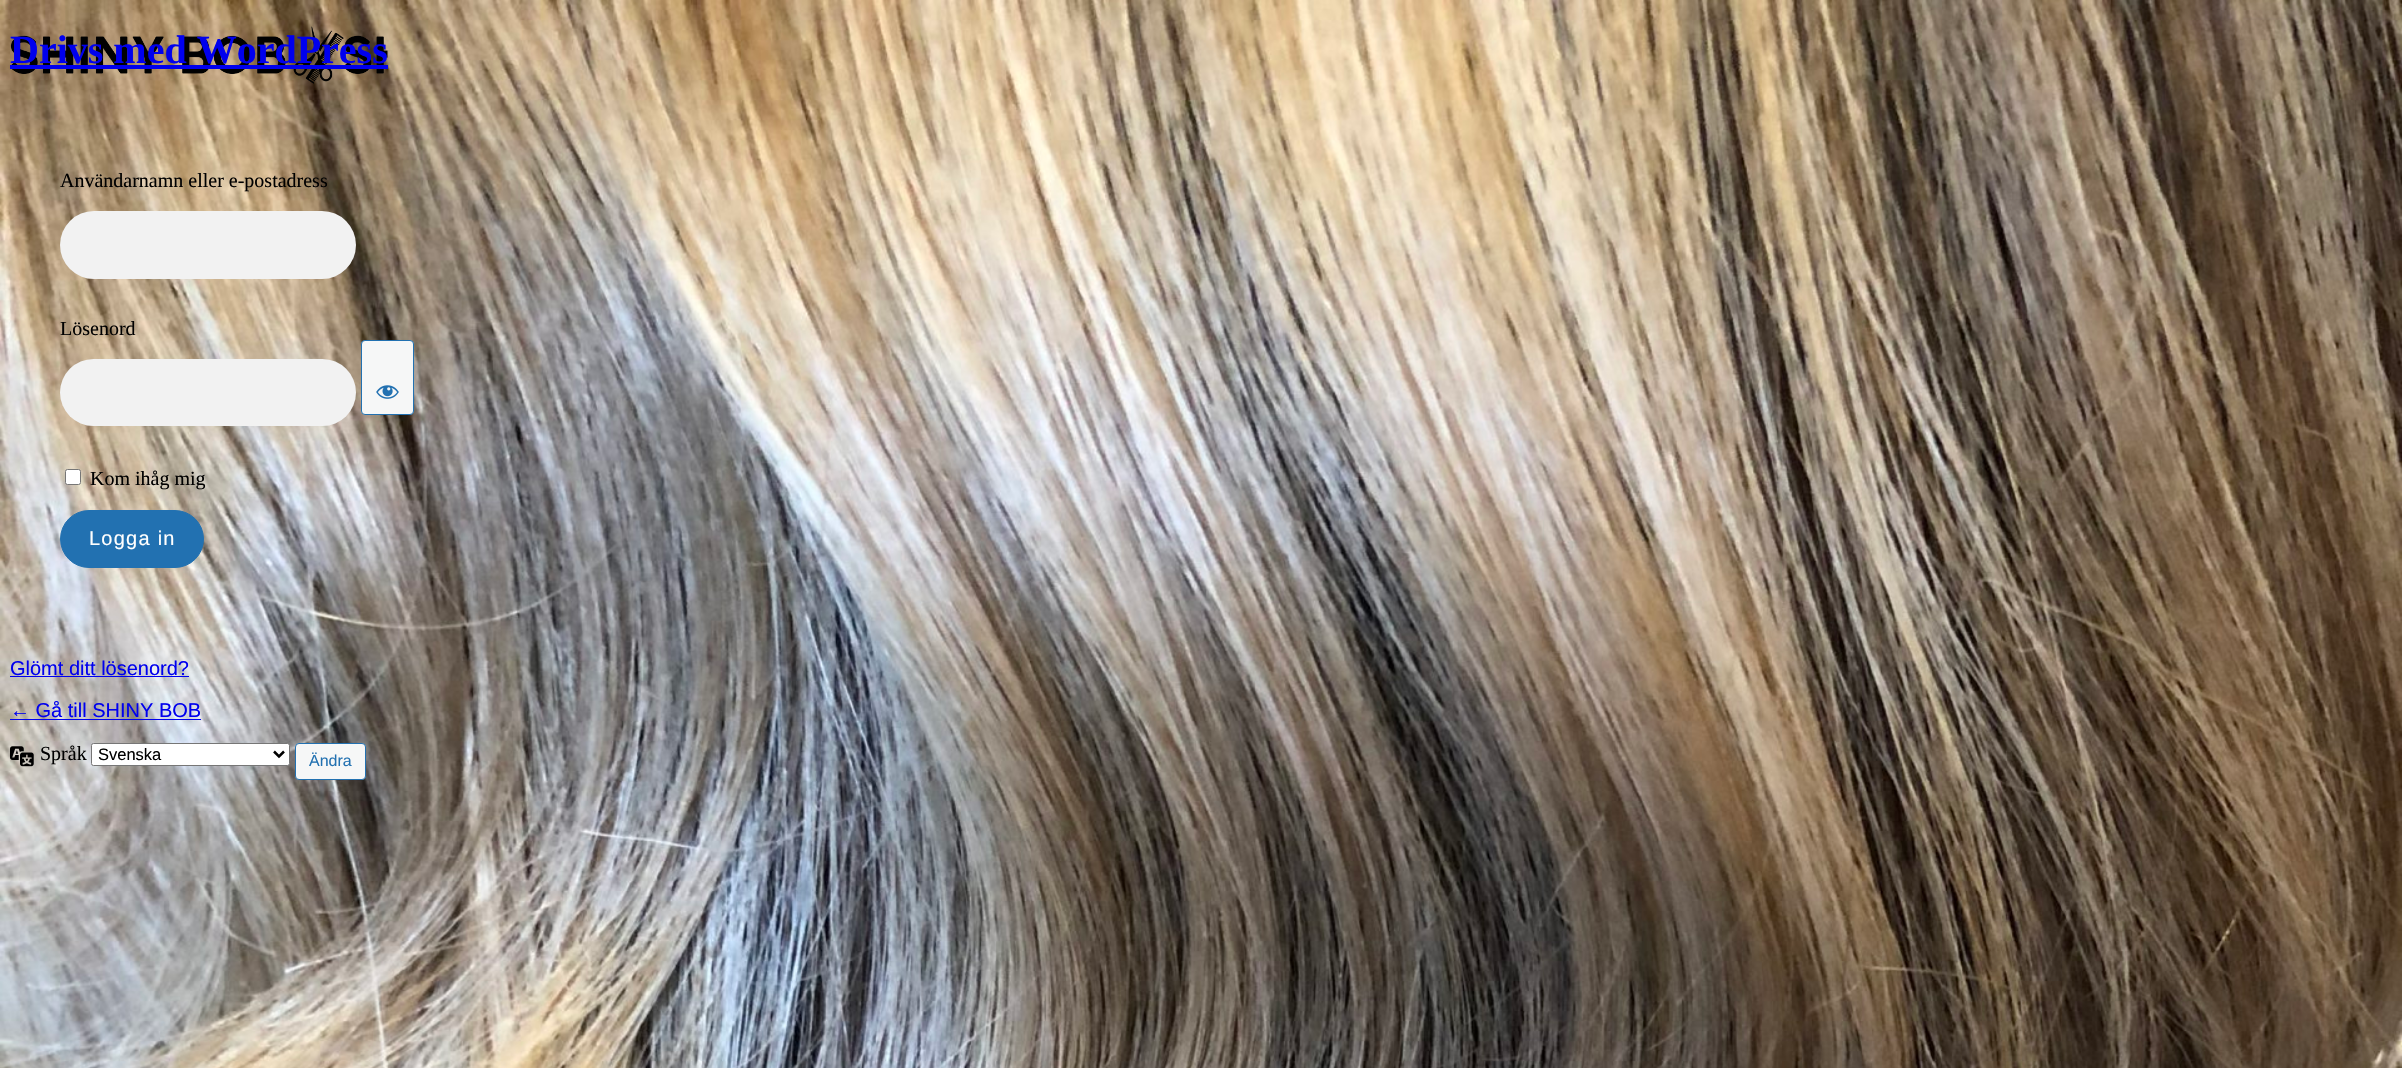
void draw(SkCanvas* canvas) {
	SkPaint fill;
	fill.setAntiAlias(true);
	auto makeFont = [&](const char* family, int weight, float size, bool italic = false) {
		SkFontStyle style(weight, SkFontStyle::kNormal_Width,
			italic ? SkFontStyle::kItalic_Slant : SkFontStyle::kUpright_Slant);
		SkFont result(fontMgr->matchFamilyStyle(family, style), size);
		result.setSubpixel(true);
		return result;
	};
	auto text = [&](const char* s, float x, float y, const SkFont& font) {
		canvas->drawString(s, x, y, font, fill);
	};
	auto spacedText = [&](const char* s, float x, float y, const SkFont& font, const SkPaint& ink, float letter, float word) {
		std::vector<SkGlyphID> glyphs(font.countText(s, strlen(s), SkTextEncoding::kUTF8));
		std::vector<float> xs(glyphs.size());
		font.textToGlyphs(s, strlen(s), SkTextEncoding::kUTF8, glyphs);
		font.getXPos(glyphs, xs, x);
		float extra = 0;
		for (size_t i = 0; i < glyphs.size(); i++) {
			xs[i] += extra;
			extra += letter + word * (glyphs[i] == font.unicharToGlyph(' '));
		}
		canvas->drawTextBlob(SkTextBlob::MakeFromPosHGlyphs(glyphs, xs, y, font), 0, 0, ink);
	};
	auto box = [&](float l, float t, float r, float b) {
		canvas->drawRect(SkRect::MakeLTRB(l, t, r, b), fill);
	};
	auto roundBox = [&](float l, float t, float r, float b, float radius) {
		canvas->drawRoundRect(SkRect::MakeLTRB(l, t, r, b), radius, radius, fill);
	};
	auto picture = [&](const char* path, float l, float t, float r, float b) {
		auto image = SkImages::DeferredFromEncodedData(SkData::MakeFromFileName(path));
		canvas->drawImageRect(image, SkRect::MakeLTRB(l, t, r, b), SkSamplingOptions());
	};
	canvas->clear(0xFFFFFFFF);
	picture("image0.png", 0, 0, 2402, 1068);
	picture("image1.png", 10, 26, 388, 84);
	fill.setColor(0xFF0000EE);
	box(10, 65, 388, 69);
	fill.setColor(0xFFF2F2F2);
	roundBox(60, 211, 356, 279, 34);
	roundBox(60, 359, 356, 426, 33.5f);
	fill.setColor(0xFFF6F7F7);
	canvas->drawRoundRect(SkRect::MakeLTRB(361.5f, 340.5f, 413.5f, 414.5f), 3.5f, 3.5f, fill);
	fill.setStyle(SkPaint::kStroke_Style);
	fill.setStrokeWidth(1);
	fill.setColor(0xFF2271B1);
	canvas->drawRoundRect(SkRect::MakeLTRB(361.5f, 340.5f, 413.5f, 414.5f), 3.5f, 3.5f, fill);
	picture("image2.png", 376, 385, 399, 399);
	fill.setStyle(SkPaint::kFill_Style);
	fill.setColor(0xFFFFFFFF);
	canvas->drawRoundRect(SkRect::MakeLTRB(65.5f, 469.5f, 80.5f, 484.5f), 2, 2, fill);
	fill.setStyle(SkPaint::kStroke_Style);
	fill.setColor(0xFF767676);
	canvas->drawRoundRect(SkRect::MakeLTRB(65.5f, 469.5f, 80.5f, 484.5f), 2, 2, fill);
	fill.setStyle(SkPaint::kFill_Style);
	fill.setColor(0xFF2271B1);
	canvas->drawRoundRect(SkRect::MakeLTRB(60.5f, 510.5f, 203.5f, 567.5f), 28.5f, 28.5f, fill);
	fill.setStyle(SkPaint::kStroke_Style);
	canvas->drawRoundRect(SkRect::MakeLTRB(60.5f, 510.5f, 203.5f, 567.5f), 28.5f, 28.5f, fill);
	fill.setStyle(SkPaint::kFill_Style);
	fill.setColor(0xFF0000EE);
	box(10, 676, 189, 677);
	box(10, 719, 201, 720);
	picture("image3.png", 10, 746, 34, 767);
	fill.setColor(0xFFFFFFFF);
	canvas->drawRoundRect(SkRect::MakeLTRB(91.5f, 743.5f, 289.5f, 765.5f), 2, 2, fill);
	fill.setStyle(SkPaint::kStroke_Style);
	fill.setColor(0xFF767676);
	canvas->drawRoundRect(SkRect::MakeLTRB(91.5f, 743.5f, 289.5f, 765.5f), 2, 2, fill);
	fill.setStrokeWidth(2.5f);
	fill.setColor(0xFF000000);
	canvas->drawPath(SkPathBuilder().moveTo(274, 751.5f).lineTo(279, 756.5f).lineTo(284, 751.5f).detach(), fill);
	fill.setStyle(SkPaint::kFill_Style);
	fill.setColor(0xFFF6F7F7);
	canvas->drawRoundRect(SkRect::MakeLTRB(295.5f, 743.5f, 365.5f, 779.5f), 3.5f, 3.5f, fill);
	fill.setStyle(SkPaint::kStroke_Style);
	fill.setStrokeWidth(1);
	fill.setColor(0xFF2271B1);
	canvas->drawRoundRect(SkRect::MakeLTRB(295.5f, 743.5f, 365.5f, 779.5f), 3.5f, 3.5f, fill);
	auto font1 = makeFont("Liberation Serif", 700, 40);
	fill.setStyle(SkPaint::kFill_Style);
	fill.setColor(0xFF0000EE);
	text("Drivs med WordPress", 10, 63, font1);
	auto font2 = makeFont("Liberation Serif", 400, 20);
	fill.setColor(0xFF000000);
	text("Användarnamn eller e-postadress", 60, 187, font2);
	text("Lösenord", 60, 335, font2);
	text("Kom ihåg mig", 90, 485, font2);
	auto font3 = makeFont("Liberation Sans", 400, 20);
	fill.setColor(0xFFFFFFFF);
	spacedText("Logga in", 89, 545, font3, fill, 1.25f, 0);
	fill.setColor(0xFF0000EE);
	text("Glömt ditt lösenord?", 10, 675, font3);
	text("← Gå till SHINY BOB", 10, 717, font3);
	fill.setColor(0xFF000000);
	text("Språk", 40, 760, font2);
	auto font4 = makeFont("Liberation Sans", 400, 16.5f);
	text("Svenska", 98, 760, font4);
	auto font5 = makeFont("Liberation Sans", 400, 16);
	fill.setColor(0xFF2271B1);
	text("Ändra", 309, 766, font5);
}
